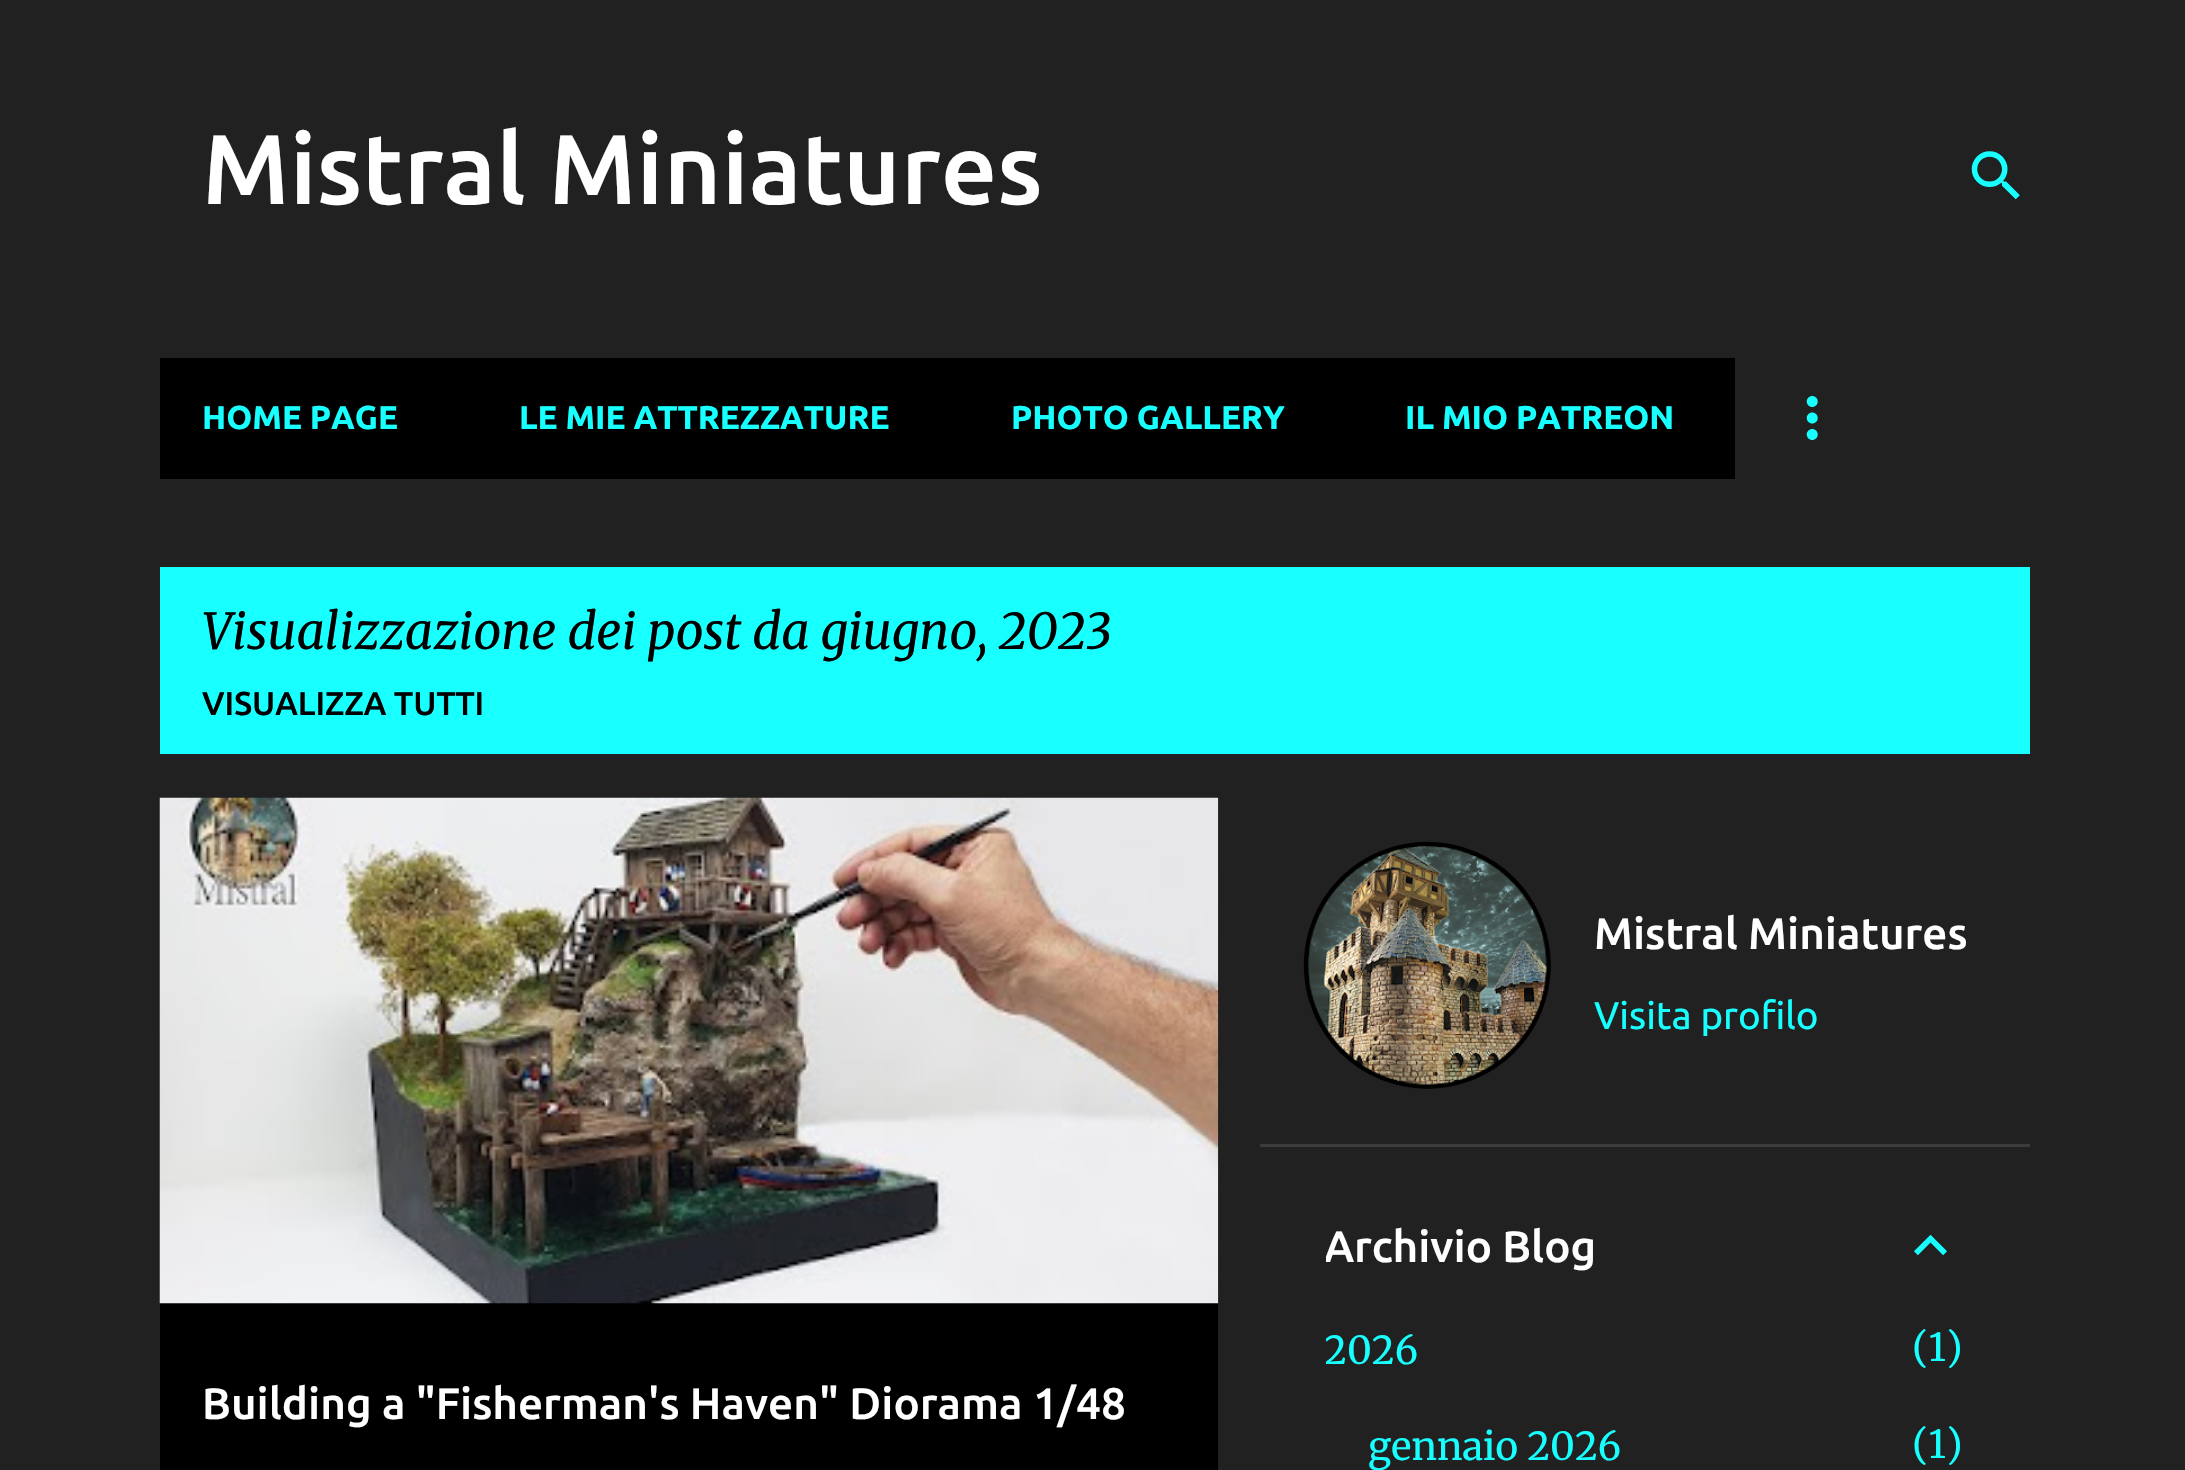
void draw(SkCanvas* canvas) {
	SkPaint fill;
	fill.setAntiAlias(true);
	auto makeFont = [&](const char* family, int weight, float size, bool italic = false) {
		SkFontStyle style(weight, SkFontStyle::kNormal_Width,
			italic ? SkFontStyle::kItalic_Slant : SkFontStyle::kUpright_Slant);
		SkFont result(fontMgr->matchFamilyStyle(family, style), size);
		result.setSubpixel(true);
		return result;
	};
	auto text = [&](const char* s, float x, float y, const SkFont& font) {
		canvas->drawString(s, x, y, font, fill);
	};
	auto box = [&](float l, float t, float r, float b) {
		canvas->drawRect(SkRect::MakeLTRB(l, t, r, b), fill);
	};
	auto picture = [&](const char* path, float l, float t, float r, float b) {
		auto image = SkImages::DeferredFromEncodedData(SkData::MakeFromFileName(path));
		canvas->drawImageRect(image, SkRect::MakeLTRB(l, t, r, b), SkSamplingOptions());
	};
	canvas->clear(0xFF212121);
	picture("image0.png", 1971, 151, 2020, 200);
	fill.setColor(0xFF000000);
	box(160, 358, 1735, 479);
	picture("image1.png", 1806, 396, 1818, 440);
	fill.setColor(0xFF18FFFF);
	box(160, 567, 2030, 754);
	fill.setColor(0xFF000000);
	box(160, 1303, 1218, 1470);
	picture("image2.png", 159, 797, 1219, 1304);
	picture("image3.png", 1303, 841, 1551, 1089);
	fill.setColor(0xFF3C3C3C);
	box(1260, 1144, 2030, 1147);
	picture("image4.png", 1914, 1234, 1947, 1256);
	auto font1 = makeFont("Ubuntu", 500, 99);
	fill.setColor(0xFFFFFFFF);
	text("Mistral Miniatures", 202, 204, font1);
	auto font2 = makeFont("Ubuntu", 700, 33);
	fill.setColor(0xFF18FFFF);
	text("HOME PAGE", 202, 429, font2);
	text("LE MIE ATTREZZATURE", 519, 429, font2);
	text("PHOTO GALLERY", 1011, 429, font2);
	text("IL MIO PATREON", 1405, 429, font2);
	auto font3 = makeFont("Merriweather", 400, 49.5f, true);
	fill.setColor(0xFF000000);
	text("Visualizzazione dei post da giugno, 2023", 202, 649, font3);
	auto font4 = makeFont("Ubuntu", 500, 33);
	text("VISUALIZZA TUTTI", 202, 715, font4);
	auto font5 = makeFont("Ubuntu", 500, 44);
	fill.setColor(0xFFFFFFFF);
	text("Building a \"Fisherman's Haven\" Diorama 1/48", 202, 1419, font5);
	text("Mistral Miniatures", 1594, 949, font5);
	auto font6 = makeFont("Ubuntu", 400, 38.5f);
	fill.setColor(0xFF18FFFF);
	text("Visita profilo", 1594, 1029, font6);
	canvas->save();
	canvas->clipRect(SkRect::MakeLTRB(1326, 1221, 1898, 1271));
	fill.setColor(0xFFFFFFFF);
	text("Archivio Blog", 1324, 1262, font5);
	canvas->restore();
	canvas->save();
	canvas->clipRect(SkRect::MakeLTRB(1326, 1213, 1964, 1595));
	auto font7 = makeFont("Merriweather", 300, 38.5f);
	fill.setColor(0xFF18FFFF);
	text("2026", 1324, 1364, font7);
	canvas->restore();
	text("(1)", 1912, 1361, font7);
	text("gennaio 2026", 1368, 1460, font7);
	text("(1)", 1912, 1458, font7);
}
